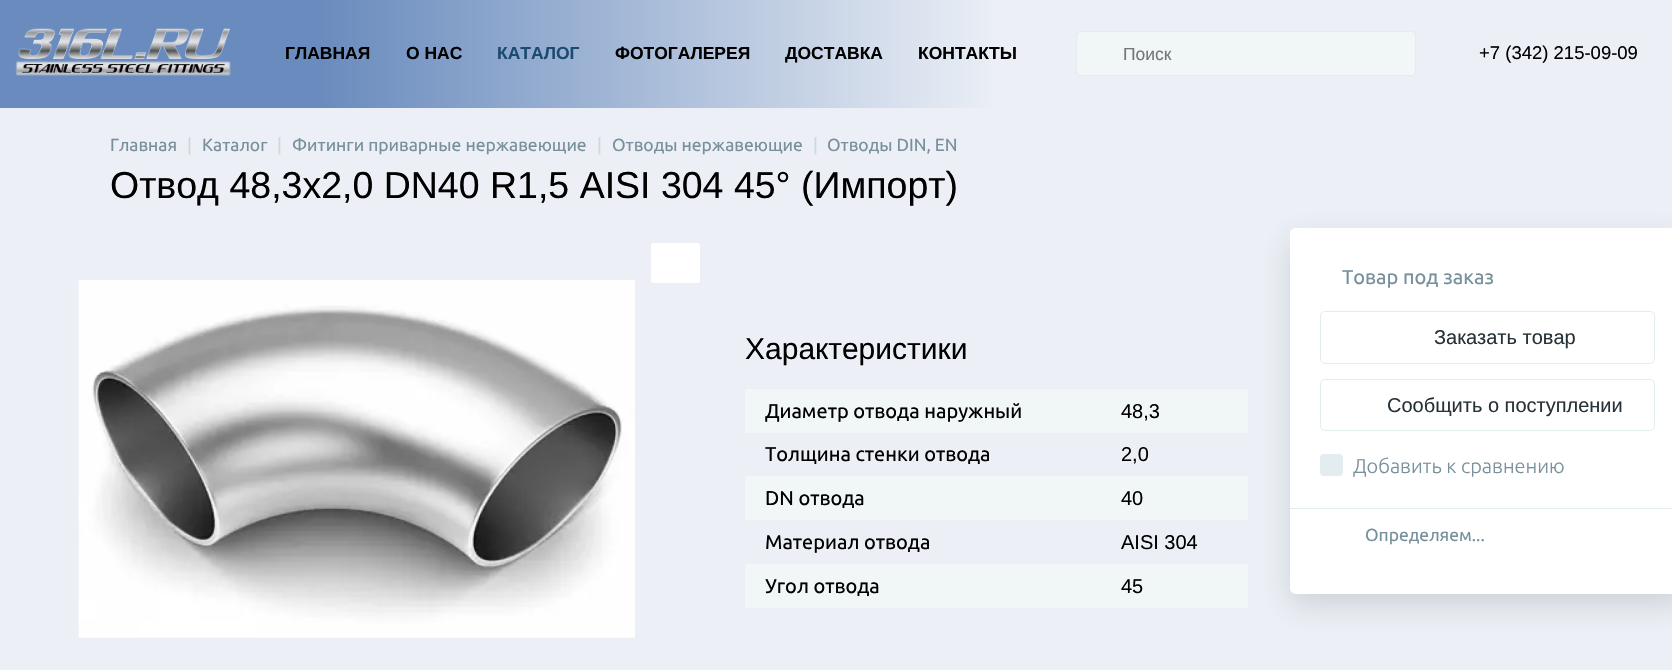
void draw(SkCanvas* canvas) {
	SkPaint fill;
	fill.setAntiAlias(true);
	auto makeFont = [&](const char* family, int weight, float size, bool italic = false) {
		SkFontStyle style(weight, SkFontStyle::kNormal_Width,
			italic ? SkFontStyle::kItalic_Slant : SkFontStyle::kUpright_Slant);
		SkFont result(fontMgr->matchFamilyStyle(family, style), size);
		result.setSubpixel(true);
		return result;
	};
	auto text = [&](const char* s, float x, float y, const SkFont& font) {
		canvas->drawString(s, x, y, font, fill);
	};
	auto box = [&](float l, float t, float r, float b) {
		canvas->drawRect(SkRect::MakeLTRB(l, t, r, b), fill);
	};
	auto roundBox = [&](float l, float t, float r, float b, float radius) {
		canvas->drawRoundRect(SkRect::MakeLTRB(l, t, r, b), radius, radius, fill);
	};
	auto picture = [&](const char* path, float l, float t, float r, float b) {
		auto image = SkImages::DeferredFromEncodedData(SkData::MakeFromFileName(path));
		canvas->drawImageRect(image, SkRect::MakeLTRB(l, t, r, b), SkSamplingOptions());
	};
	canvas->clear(0xFFECF0F6);
	{
		const SkColor colors[] = {0xFF698BBD, 0xFFECF0F6};
		const float stops[] = {0.19f, 0.6f};
		const SkPoint ends[] = {{0, 54}, {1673, 54}};
		fill.setShader(SkGradientShader::MakeLinear(ends, colors, stops, 2, SkTileMode::kClamp));
		fill.setAlpha(255);
	}
	box(0, 0, 991, 108);
	picture("image0.png", 15, 28, 231, 76);
	fill.setShader(nullptr);
	fill.setColor(0xFFF1F6F7);
	canvas->drawRoundRect(SkRect::MakeLTRB(1076.5f, 31.5f, 1415.5f, 75.5f), 4.5f, 4.5f, fill);
	fill.setStyle(SkPaint::kStroke_Style);
	fill.setStrokeWidth(1);
	fill.setColor(0xFFE3ECEF);
	canvas->drawRoundRect(SkRect::MakeLTRB(1076.5f, 31.5f, 1415.5f, 75.5f), 4.5f, 4.5f, fill);
	fill.setStyle(SkPaint::kFill_Style);
	fill.setColor(0xFFFFFFFF);
	roundBox(651, 243, 700, 283, 2.5f);
	picture("image1.png", 78, 280, 635, 638);
	fill.setColor(0xFFF9FAFC);
	box(79, 637, 635, 638);
	fill.setColor(0xFFF1F6F7);
	box(745, 389, 1248, 433);
	box(745, 476, 1248, 520);
	box(745, 564, 1248, 608);
	fill.setColor(0x29263238);
	fill.setMaskFilter(SkMaskFilter::MakeBlur(kNormal_SkBlurStyle, 15));
	canvas->drawRoundRect(SkRect::MakeLTRB(1290, 239, 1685, 605), 6, 6, fill);
	fill.setMaskFilter(nullptr);
	fill.setColor(0xFFFFFFFF);
	canvas->drawPath(SkPathBuilder().moveTo(1296, 228).lineTo(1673, 228).lineTo(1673, 594).lineTo(1296, 594).cubicTo(1292.5f, 594, 1290, 591.5f, 1290, 588).lineTo(1290, 234).cubicTo(1290, 230.5f, 1292.5f, 228, 1296, 228).close().detach(), fill);
	fill.setStyle(SkPaint::kStroke_Style);
	fill.setColor(0xFFE3ECEF);
	canvas->drawRoundRect(SkRect::MakeLTRB(1320.5f, 311.5f, 1654.5f, 363.5f), 4.5f, 4.5f, fill);
	canvas->drawRoundRect(SkRect::MakeLTRB(1320.5f, 379.5f, 1654.5f, 430.5f), 4.5f, 4.5f, fill);
	fill.setStyle(SkPaint::kFill_Style);
	roundBox(1320, 454, 1343, 476, 4);
	box(1290, 508, 1672, 509);
	auto font1 = makeFont("Liberation Sans", 700, 17.5f);
	fill.setColor(0xFF000000);
	text("ГЛАВНАЯ", 285, 59, font1);
	text("О НАС", 406, 59, font1);
	fill.setColor(0xFF1C4A72);
	text("КАТАЛОГ", 497, 59, font1);
	fill.setColor(0xFF000000);
	text("ФОТОГАЛЕРЕЯ", 615, 59, font1);
	text("ДОСТАВКА", 785, 59, font1);
	text("КОНТАКТЫ", 918, 59, font1);
	auto font2 = makeFont("Liberation Sans", 400, 17.5f);
	fill.setColor(0xFF757575);
	text("Поиск", 1123, 60, font2);
	auto font3 = makeFont("Liberation Sans", 400, 18.5f);
	fill.setColor(0xFF000000);
	text("+7 (342) 215-09-09", 1479, 59, font3);
	auto font4 = makeFont("Ubuntu", 400, 17.5f);
	fill.setColor(0xFF78909C);
	text("Главная", 110, 151, font4);
	fill.setColor(0xFFCED9DB);
	text("|", 187, 151, font4);
	fill.setColor(0xFF78909C);
	text("Каталог", 202, 151, font4);
	fill.setColor(0xFFCED9DB);
	text("|", 277, 151, font4);
	fill.setColor(0xFF78909C);
	text("Фитинги приварные нержавеющие", 292, 151, font4);
	fill.setColor(0xFFCED9DB);
	text("|", 597, 151, font4);
	fill.setColor(0xFF78909C);
	text("Отводы нержавеющие", 612, 151, font4);
	fill.setColor(0xFFCED9DB);
	text("|", 813, 151, font4);
	fill.setColor(0xFF78909C);
	text("Отводы DIN, EN", 827, 151, font4);
	auto font5 = makeFont("Liberation Sans", 400, 37.5f);
	fill.setColor(0xFF000000);
	text("Отвод 48,3x2,0 DN40 R1,5 AISI 304 45° (Импорт)", 110, 198, font5);
	auto font6 = makeFont("Liberation Sans", 400, 30);
	text("Характеристики", 745, 359, font6);
	auto font7 = makeFont("Ubuntu", 400, 20);
	text("Диаметр отвода наружный", 765, 418, font7);
	auto font8 = makeFont("Liberation Sans", 400, 20);
	text("48,3", 1121, 418, font8);
	text("Толщина стенки отвода", 765, 461, font7);
	text("2,0", 1121, 461, font8);
	text("DN отвода", 765, 505, font7);
	text("40", 1121, 505, font8);
	text("Материал отвода", 765, 549, font7);
	text("AISI 304", 1121, 549, font8);
	text("Угол отвода", 765, 593, font7);
	text("45", 1121, 593, font8);
	fill.setColor(0xFF78909C);
	text("Товар под заказ", 1342, 284, font7);
	fill.setColor(0xFF263238);
	text("Заказать товар", 1434, 344, font8);
	text("Сообщить о поступлении", 1387, 412, font8);
	auto font9 = makeFont("Ubuntu", 300, 20);
	fill.setColor(0xFF78909C);
	text("Добавить к сравнению", 1353, 473, font9);
	text("Определяем...", 1365, 541, font4);
}
